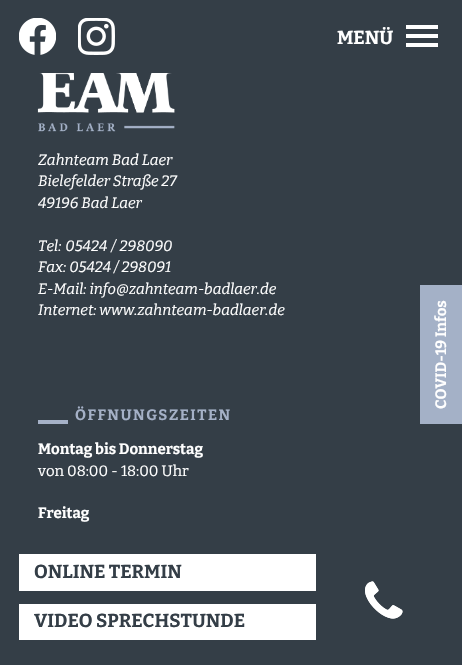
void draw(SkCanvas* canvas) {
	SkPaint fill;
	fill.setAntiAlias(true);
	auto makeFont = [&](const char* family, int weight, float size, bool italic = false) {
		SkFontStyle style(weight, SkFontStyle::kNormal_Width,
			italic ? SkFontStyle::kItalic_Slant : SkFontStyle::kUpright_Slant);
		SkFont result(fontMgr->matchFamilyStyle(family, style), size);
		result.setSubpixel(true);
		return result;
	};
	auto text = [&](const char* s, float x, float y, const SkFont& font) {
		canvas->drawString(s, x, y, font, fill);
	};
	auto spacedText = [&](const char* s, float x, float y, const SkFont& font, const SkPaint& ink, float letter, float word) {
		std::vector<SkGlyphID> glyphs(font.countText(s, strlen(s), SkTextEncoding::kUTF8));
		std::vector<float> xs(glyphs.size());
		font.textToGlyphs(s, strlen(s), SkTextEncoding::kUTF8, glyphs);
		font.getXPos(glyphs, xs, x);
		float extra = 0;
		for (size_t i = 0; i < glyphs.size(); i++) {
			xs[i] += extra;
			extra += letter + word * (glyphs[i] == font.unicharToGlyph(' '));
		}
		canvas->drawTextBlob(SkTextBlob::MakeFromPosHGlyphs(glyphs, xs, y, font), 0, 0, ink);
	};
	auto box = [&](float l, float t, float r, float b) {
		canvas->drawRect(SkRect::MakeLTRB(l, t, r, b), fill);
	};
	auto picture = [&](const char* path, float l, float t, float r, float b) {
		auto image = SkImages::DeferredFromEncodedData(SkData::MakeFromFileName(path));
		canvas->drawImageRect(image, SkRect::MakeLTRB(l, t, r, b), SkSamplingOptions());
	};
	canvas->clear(0xFF343E47);
	picture("image0.png", 19, 18, 56, 55);
	picture("image1.png", 78, 18, 115, 55);
	fill.setColor(0xFFFFFFFF);
	box(406, 34, 438, 38);
	box(406, 25, 438, 29);
	box(406, 43, 438, 47);
	picture("image2.png", 37, 73, 175, 132);
	fill.setColor(0xFFA5B1C7);
	box(38, 420, 68, 424);
	fill.setColor(0xFFA4B1C7);
	box(420, 285, 462, 424);
	fill.setColor(0xFFFFFFFF);
	box(19, 554, 316, 591);
	box(19, 604, 316, 640);
	picture("image3.png", 365, 581, 403, 619);
	auto font1 = makeFont("Bitter", 100, 18.75f);
	text("MENÜ", 337, 44, font1);
	auto font2 = makeFont("Bitter", 100, 15, true);
	text("Zahnteam Bad Laer", 38, 165, font2);
	text("Bielefelder Straße 27", 38, 186, font2);
	text("49196 Bad Laer", 38, 208, font2);
	spacedText("Tel: 05424 / 298090", 38, 251, font2, fill, 0, 1);
	text("Fax: 05424 / 298091", 38, 272, font2);
	text("E-Mail: info@zahnteam-badlaer.de", 38, 294, font2);
	text("Internet: www.zahnteam-badlaer.de", 38, 315, font2);
	auto font3 = makeFont("Bitter", 100, 15);
	fill.setColor(0xFFA5B1C7);
	spacedText("ÖFFNUNGSZEITEN", 75, 420, font3, fill, 1.5f, 0);
	fill.setColor(0xFFFFFFFF);
	text("Montag bis Donnerstag", 38, 454, font3);
	auto font4 = makeFont("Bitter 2", 100, 15);
	text("von 08:00 - 18:00 Uhr", 38, 476, font4);
	text("Freitag", 38, 518, font3);
	canvas->save();
	canvas->rotate(-90, 446, 409);
	text("COVID-19 Infos", 446, 409, font3);
	canvas->restore();
	fill.setColor(0xFF343E47);
	text("ONLINE TERMIN", 34, 578, font1);
	text("VIDEO SPRECHSTUNDE", 34, 627, font1);
}
